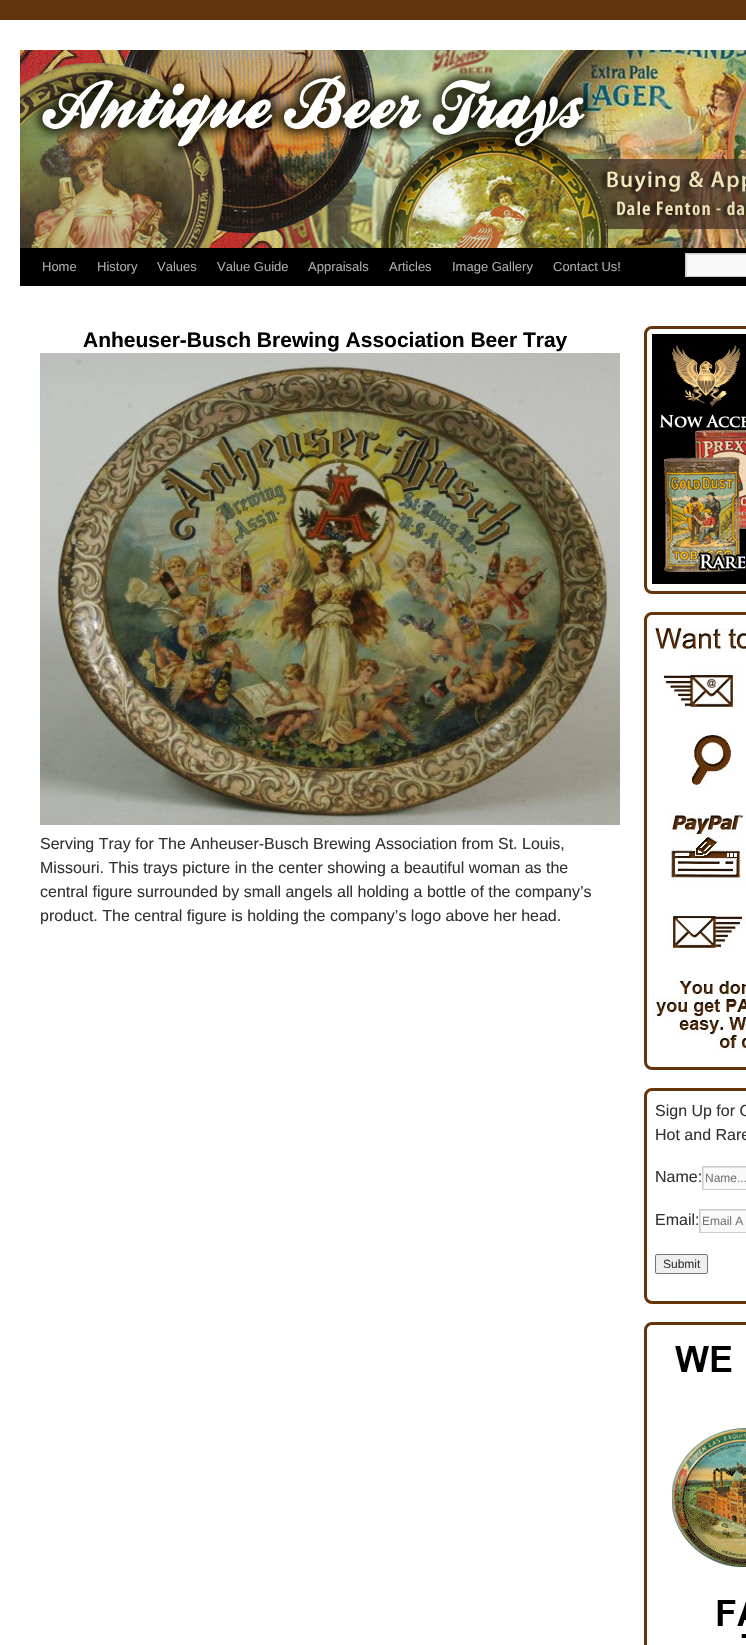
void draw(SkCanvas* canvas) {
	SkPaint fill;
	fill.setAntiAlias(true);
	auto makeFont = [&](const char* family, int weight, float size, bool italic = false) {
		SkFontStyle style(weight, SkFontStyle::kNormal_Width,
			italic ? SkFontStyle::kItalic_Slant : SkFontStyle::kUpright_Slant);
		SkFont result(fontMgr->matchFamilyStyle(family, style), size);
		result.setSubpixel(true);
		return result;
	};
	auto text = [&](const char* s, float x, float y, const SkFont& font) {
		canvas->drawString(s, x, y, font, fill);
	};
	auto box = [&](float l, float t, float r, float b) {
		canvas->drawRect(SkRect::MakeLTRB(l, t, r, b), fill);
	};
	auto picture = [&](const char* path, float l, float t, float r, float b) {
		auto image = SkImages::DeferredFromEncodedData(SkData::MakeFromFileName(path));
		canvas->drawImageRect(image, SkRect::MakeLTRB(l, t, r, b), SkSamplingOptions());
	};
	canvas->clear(0xFF64340C);
	fill.setColor(0xFFFFFFFF);
	box(0, 20, 746, 1645);
	picture("image0.png", 20, 50, 746, 248);
	fill.setColor(0xFF000000);
	box(20, 248, 746, 286);
	fill.setColor(0xFFF9F9F9);
	box(687, 255, 746, 276);
	canvas->save();
	canvas->clipRect(SkRect::MakeLTRB(686, 254, 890, 276));
	fill.setColor(0xFFE0E0E0);
	canvas->drawPath(SkPathBuilder(SkPathFillType::kEvenOdd).moveTo(587, 155).lineTo(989, 155).lineTo(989, 375).lineTo(587, 375).close().moveTo(687, 255).lineTo(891, 255).lineTo(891, 277).lineTo(687, 277).close().detach(), fill);
	canvas->restore();
	fill.setStyle(SkPaint::kStroke_Style);
	fill.setStrokeWidth(1);
	fill.setColor(0xFFCCCCCC);
	canvas->drawRect(SkRect::MakeLTRB(685.5f, 253.5f, 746.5f, 276.5f), fill);
	picture("image1.png", 40, 353, 620, 825);
	fill.setStrokeWidth(3);
	fill.setColor(0xFF64340C);
	canvas->drawRoundRect(SkRect::MakeLTRB(645.5f, 327.5f, 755.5f, 592.5f), 6.5f, 6.5f, fill);
	picture("image2.png", 652, 334, 746, 584);
	canvas->drawRoundRect(SkRect::MakeLTRB(645.5f, 613.5f, 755.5f, 1068.5f), 6.5f, 6.5f, fill);
	picture("image3.png", 652, 628, 746, 1052);
	canvas->drawRoundRect(SkRect::MakeLTRB(645.5f, 1089.5f, 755.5f, 1302.5f), 6.5f, 6.5f, fill);
	fill.setStyle(SkPaint::kFill_Style);
	fill.setColor(0xFFF9F9F9);
	box(704, 1168, 746, 1189);
	canvas->save();
	canvas->clipRect(SkRect::MakeLTRB(703, 1167, 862, 1189));
	fill.setColor(0xFFE0E0E0);
	canvas->drawPath(SkPathBuilder(SkPathFillType::kEvenOdd).moveTo(604, 1068).lineTo(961, 1068).lineTo(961, 1288).lineTo(604, 1288).close().moveTo(704, 1168).lineTo(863, 1168).lineTo(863, 1190).lineTo(704, 1190).close().detach(), fill);
	canvas->restore();
	fill.setStyle(SkPaint::kStroke_Style);
	fill.setStrokeWidth(1);
	fill.setColor(0xFFCCCCCC);
	canvas->drawRect(SkRect::MakeLTRB(702.5f, 1166.5f, 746.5f, 1189.5f), fill);
	fill.setStyle(SkPaint::kFill_Style);
	fill.setColor(0xFFF9F9F9);
	box(701, 1211, 746, 1232);
	canvas->save();
	canvas->clipRect(SkRect::MakeLTRB(700, 1210, 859, 1232));
	fill.setColor(0xFFE0E0E0);
	canvas->drawPath(SkPathBuilder(SkPathFillType::kEvenOdd).moveTo(601, 1111).lineTo(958, 1111).lineTo(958, 1331).lineTo(601, 1331).close().moveTo(701, 1211).lineTo(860, 1211).lineTo(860, 1233).lineTo(701, 1233).close().detach(), fill);
	canvas->restore();
	fill.setStyle(SkPaint::kStroke_Style);
	fill.setColor(0xFFCCCCCC);
	canvas->drawRect(SkRect::MakeLTRB(699.5f, 1209.5f, 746.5f, 1232.5f), fill);
	fill.setStyle(SkPaint::kFill_Style);
	fill.setColor(0xFFEFEFEF);
	canvas->drawRoundRect(SkRect::MakeLTRB(655.5f, 1254.5f, 707.5f, 1273.5f), 1.5f, 1.5f, fill);
	fill.setStyle(SkPaint::kStroke_Style);
	fill.setColor(0xFF767676);
	canvas->drawRoundRect(SkRect::MakeLTRB(655.5f, 1254.5f, 707.5f, 1273.5f), 1.5f, 1.5f, fill);
	fill.setStrokeWidth(3);
	fill.setColor(0xFF64340C);
	canvas->drawRoundRect(SkRect::MakeLTRB(645.5f, 1323.5f, 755.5f, 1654.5f), 6.5f, 6.5f, fill);
	picture("image4.png", 672, 1346, 746, 1638);
	auto font1 = makeFont("Liberation Sans", 400, 13);
	fill.setStyle(SkPaint::kFill_Style);
	fill.setColor(0xFFAAAAAA);
	text("Home", 42, 271, font1);
	text("History", 97, 271, font1);
	text("Values", 157, 271, font1);
	text("Value Guide", 217, 271, font1);
	text("Appraisals", 308, 271, font1);
	text("Articles", 389, 271, font1);
	text("Image Gallery", 452, 271, font1);
	text("Contact Us!", 553, 271, font1);
	auto font2 = makeFont("Liberation Sans", 700, 21);
	fill.setColor(0xFF000000);
	text("Anheuser-Busch Brewing Association Beer Tray", 83, 347, font2);
	auto font3 = makeFont("Liberation Sans", 400, 16);
	fill.setColor(0xFF333333);
	text("Serving Tray for The Anheuser-Busch Brewing Association from St. Louis,", 40, 849, font3);
	text("Missouri. This trays picture in the center showing a beautiful woman as the", 40, 873, font3);
	text("central figure surrounded by small angels all holding a bottle of the company’s", 40, 897, font3);
	text("product. The central figure is holding the company’s logo above her head.", 40, 921, font3);
	text("Sign Up for O", 655, 1116, font3);
	text("Hot and Rare", 655, 1140, font3);
	text("Name:", 655, 1182, font3);
	auto font4 = makeFont("Liberation Sans", 400, 12);
	fill.setColor(0xFF757575);
	text("Name...", 705, 1182, font4);
	fill.setColor(0xFF333333);
	text("Email:", 655, 1225, font3);
	fill.setColor(0xFF757575);
	text("Email A", 702, 1225, font4);
	fill.setColor(0xFF333333);
	text("Submit", 663, 1268, font4);
}
